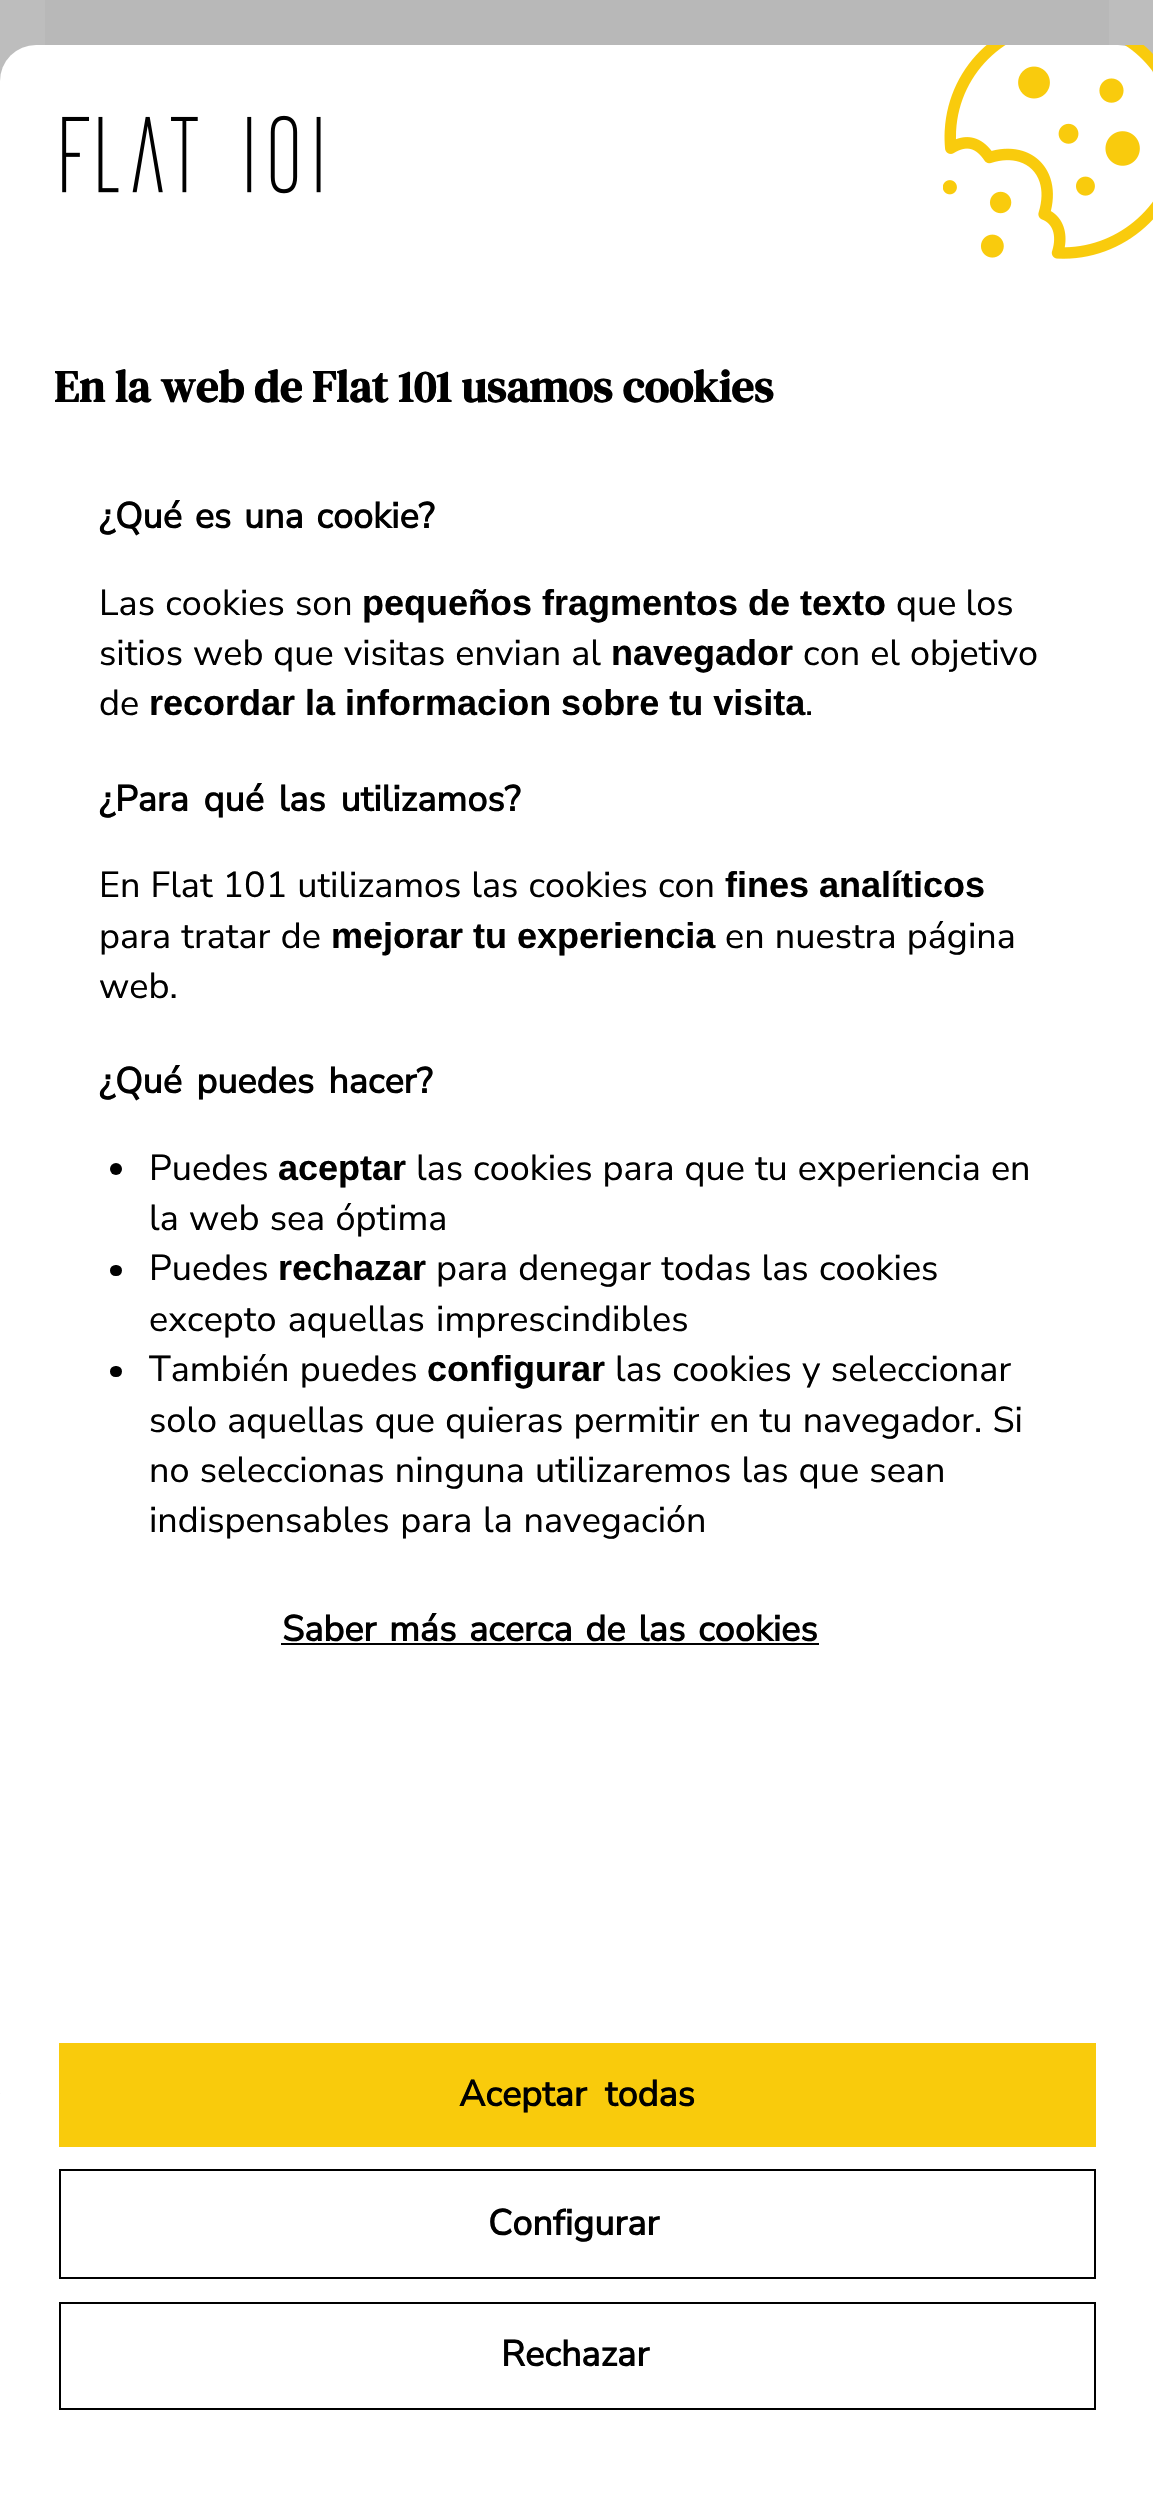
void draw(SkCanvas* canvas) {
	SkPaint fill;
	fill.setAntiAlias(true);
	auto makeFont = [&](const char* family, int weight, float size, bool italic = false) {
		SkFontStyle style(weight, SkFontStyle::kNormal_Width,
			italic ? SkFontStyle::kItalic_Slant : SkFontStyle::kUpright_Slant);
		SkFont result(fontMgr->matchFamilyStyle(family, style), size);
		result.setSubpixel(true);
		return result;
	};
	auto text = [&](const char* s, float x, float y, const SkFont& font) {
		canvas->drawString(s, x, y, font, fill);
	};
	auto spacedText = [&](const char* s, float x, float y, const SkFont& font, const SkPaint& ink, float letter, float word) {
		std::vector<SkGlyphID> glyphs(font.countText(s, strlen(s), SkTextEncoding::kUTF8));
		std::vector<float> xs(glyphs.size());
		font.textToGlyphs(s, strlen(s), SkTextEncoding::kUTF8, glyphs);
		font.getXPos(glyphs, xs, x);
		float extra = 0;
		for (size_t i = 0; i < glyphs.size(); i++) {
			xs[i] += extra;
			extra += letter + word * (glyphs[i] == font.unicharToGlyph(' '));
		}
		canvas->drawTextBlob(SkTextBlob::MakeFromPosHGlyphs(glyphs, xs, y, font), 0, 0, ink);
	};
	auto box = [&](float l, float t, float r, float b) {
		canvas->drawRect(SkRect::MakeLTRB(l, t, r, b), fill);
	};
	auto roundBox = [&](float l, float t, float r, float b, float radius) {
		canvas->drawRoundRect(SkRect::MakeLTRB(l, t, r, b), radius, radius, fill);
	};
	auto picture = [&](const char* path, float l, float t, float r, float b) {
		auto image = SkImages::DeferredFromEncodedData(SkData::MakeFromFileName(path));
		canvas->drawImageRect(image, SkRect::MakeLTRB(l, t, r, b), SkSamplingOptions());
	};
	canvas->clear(0xFFBDBDBD);
	fill.setColor(0xFFB8B8B8);
	box(45, 0, 1109, 45);
	fill.setColor(0xFFFFFFFF);
	roundBox(0, 45, 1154, 2129, 36);
	picture("image0.png", 62, 115, 321, 194);
	picture("image1.png", 943, 45, 1153, 259);
	fill.setColor(0xFF000000);
	canvas->drawCircle(116, 1169, 6, fill);
	roundBox(110, 1265, 122, 1276, 5.5f);
	roundBox(110, 1366, 122, 1377, 5.5f);
	box(281, 1643, 819, 1645);
	fill.setColor(0xFFFFFFFF);
	box(0, 2094, 1153, 2496);
	fill.setColor(0xFFF9CB0C);
	box(59, 2043, 1096, 2147);
	fill.setStyle(SkPaint::kStroke_Style);
	fill.setStrokeWidth(2);
	fill.setColor(0xFF000000);
	canvas->drawRect(SkRect::MakeLTRB(60, 2170, 1095, 2278), fill);
	canvas->drawRect(SkRect::MakeLTRB(60, 2303, 1095, 2409), fill);
	auto font1 = makeFont("DM Serif Text", 700, 45);
	fill.setStyle(SkPaint::kFill_Style);
	text("En la web de Flat 101 usamos cookies", 54, 402, font1);
	auto font2 = makeFont("Nunito Sans", 700, 36);
	spacedText("¿Qué es una cookie?", 99, 528, font2, fill, 0, 3.5f);
	auto font3 = makeFont("Nunito Sans", 400, 36);
	spacedText("Las cookies son", 99, 615, font3, fill, 0, 1);
	auto font4 = makeFont("Liberation Sans", 700, 36);
	text("pequeños fragmentos de texto", 362, 615, font4);
	text("que los", 896, 615, font3);
	spacedText("sitios web que visitas envian al", 99, 665, font3, fill, 0, 0.75f);
	text("navegador", 611, 665, font4);
	spacedText("con el objetivo", 803, 665, font3, fill, 0, 0.75f);
	text("de", 99, 715, font3);
	text("recordar la informacion sobre tu visita", 149, 715, font4);
	text(".", 805, 715, font3);
	spacedText("¿Para qué las utilizamos?", 99, 811, font2, fill, 0, 5.5f);
	spacedText("En Flat 101 utilizamos las cookies con", 99, 897, font3, fill, 0, 0.75f);
	text("fines analíticos", 725, 897, font4);
	spacedText("para tratar de", 99, 948, font3, fill, 0, 1);
	text("mejorar tu experiencia", 331, 948, font4);
	spacedText("en nuestra página", 725, 948, font3, fill, 0, 1);
	text("web.", 99, 998, font3);
	spacedText("¿Qué puedes hacer?", 99, 1093, font2, fill, 0, 5);
	text("Puedes", 149, 1180, font3);
	text("aceptar", 278, 1180, font4);
	spacedText("las cookies para que tu experiencia en", 416, 1180, font3, fill, 0, 0.75f);
	spacedText("la web sea óptima", 149, 1230, font3, fill, 0, 1);
	text("Puedes", 149, 1280, font3);
	text("rechazar", 278, 1280, font4);
	spacedText("para denegar todas las cookies", 436, 1280, font3, fill, 0, 1);
	spacedText("excepto aquellas imprescindibles", 149, 1331, font3, fill, 0, 2);
	spacedText("También puedes", 149, 1381, font3, fill, 0, 1);
	text("configurar", 427, 1381, font4);
	spacedText("las cookies y seleccionar", 615, 1381, font3, fill, 0, 1);
	spacedText("solo aquellas que quieras permitir en tu navegador. Si", 149, 1432, font3, fill, 0, 1);
	spacedText("no seleccionas ninguna utilizaremos las que sean", 149, 1482, font3, fill, 0, 1);
	spacedText("indispensables para la navegación", 149, 1532, font3, fill, 0, 1.5f);
	spacedText("Saber más acerca de las cookies", 282, 1641, font2, fill, 0, 3.5f);
	spacedText("Aceptar todas", 459, 2106, font2, fill, 0, 9);
	text("Configurar", 488, 2235, font2);
	text("Rechazar", 501, 2366, font2);
}
